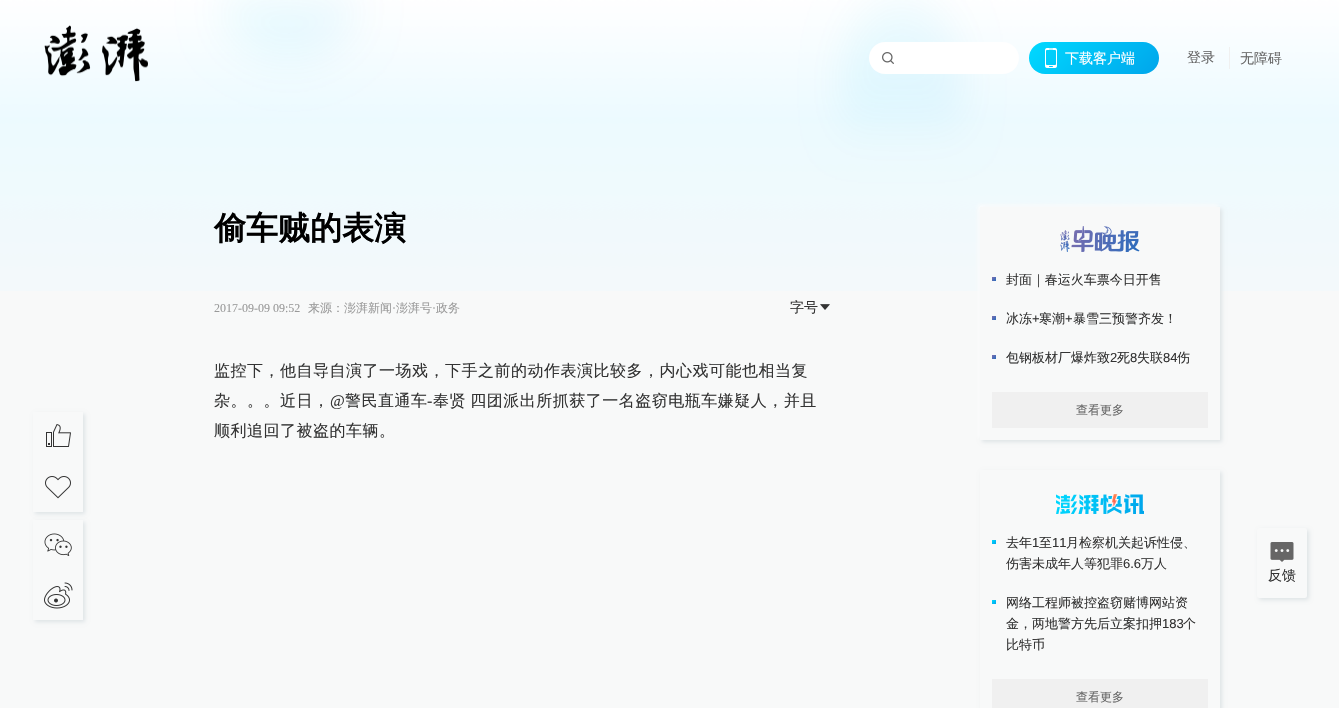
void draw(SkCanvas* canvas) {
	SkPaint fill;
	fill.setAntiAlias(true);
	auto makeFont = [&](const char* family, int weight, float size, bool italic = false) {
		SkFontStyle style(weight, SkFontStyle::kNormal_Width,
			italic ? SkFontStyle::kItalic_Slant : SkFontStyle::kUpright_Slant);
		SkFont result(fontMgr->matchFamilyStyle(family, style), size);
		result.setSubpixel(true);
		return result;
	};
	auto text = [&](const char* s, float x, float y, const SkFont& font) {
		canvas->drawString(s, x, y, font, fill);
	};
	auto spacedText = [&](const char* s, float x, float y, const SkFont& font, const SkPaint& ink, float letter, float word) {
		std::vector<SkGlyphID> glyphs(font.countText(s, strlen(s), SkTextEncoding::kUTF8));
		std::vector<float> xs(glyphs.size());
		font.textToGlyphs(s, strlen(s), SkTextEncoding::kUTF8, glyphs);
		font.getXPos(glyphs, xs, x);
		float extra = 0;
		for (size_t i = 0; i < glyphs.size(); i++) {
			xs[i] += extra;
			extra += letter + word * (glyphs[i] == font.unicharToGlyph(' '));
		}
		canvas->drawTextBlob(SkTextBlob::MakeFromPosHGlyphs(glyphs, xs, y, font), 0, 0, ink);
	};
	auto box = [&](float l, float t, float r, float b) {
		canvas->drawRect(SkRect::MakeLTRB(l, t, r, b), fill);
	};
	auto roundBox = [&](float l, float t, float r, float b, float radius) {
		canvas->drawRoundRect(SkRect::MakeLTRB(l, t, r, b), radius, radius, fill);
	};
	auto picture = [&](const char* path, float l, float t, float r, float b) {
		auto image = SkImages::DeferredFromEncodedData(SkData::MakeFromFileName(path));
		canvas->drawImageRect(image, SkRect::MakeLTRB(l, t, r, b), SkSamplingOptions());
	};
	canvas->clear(0xFFF8F9F9);
	picture("image0.png", 0, 0, 1339, 291);
	picture("image1.png", 44, 25, 148, 82);
	fill.setColor(0xFFFFFFFF);
	roundBox(869, 42, 1019, 74, 16);
	picture("image2.png", 882, 52, 894, 64);
	{
		const SkColor colors[] = {0xFF00D9FF, 0xFF00A5EB};
		const float stops[] = {0, 1};
		const SkPoint ends[] = {{1054, 18}, {1135, 99}};
		fill.setShader(SkGradientShader::MakeLinear(ends, colors, stops, 2, SkTileMode::kClamp));
		fill.setAlpha(255);
	}
	roundBox(1029, 42, 1159, 74, 16);
	picture("image3.png", 1045, 48, 1057, 68);
	fill.setShader(nullptr);
	fill.setColor(0xFFF0F0F0);
	box(1229, 47, 1230, 69);
	canvas->save();
	canvas->clipPath(SkPathBuilder(SkPathFillType::kEvenOdd).moveTo(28, 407).lineTo(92, 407).lineTo(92, 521).lineTo(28, 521).close().moveTo(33, 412).lineTo(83, 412).lineTo(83, 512).lineTo(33, 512).close().detach(), true);
	fill.setColor(0xFFDEE4E6);
	fill.setMaskFilter(SkMaskFilter::MakeBlur(kNormal_SkBlurStyle, 2));
	canvas->drawRect(SkRect::MakeLTRB(35, 414, 85, 514), fill);
	fill.setMaskFilter(nullptr);
	canvas->restore();
	picture("image4.png", 46, 424, 71, 447);
	picture("image5.png", 45, 476, 71, 499);
	canvas->save();
	canvas->clipPath(SkPathBuilder(SkPathFillType::kEvenOdd).moveTo(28, 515).lineTo(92, 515).lineTo(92, 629).lineTo(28, 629).close().moveTo(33, 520).lineTo(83, 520).lineTo(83, 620).lineTo(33, 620).close().detach(), true);
	fill.setMaskFilter(SkMaskFilter::MakeBlur(kNormal_SkBlurStyle, 2));
	canvas->drawRect(SkRect::MakeLTRB(35, 522, 85, 622), fill);
	fill.setMaskFilter(nullptr);
	canvas->restore();
	picture("image6.png", 44, 533, 72, 556);
	picture("image7.png", 44, 582, 73, 609);
	picture("image8.png", 820, 304, 830, 310);
	fill.setColor(0xFFFFFFFF);
	fill.setMaskFilter(SkMaskFilter::MakeBlur(kNormal_SkBlurStyle, 2));
	canvas->drawRect(SkRect::MakeLTRB(978, 205, 1218, 438), fill);
	fill.setMaskFilter(nullptr);
	fill.setColor(0xFFDEE4E6);
	fill.setMaskFilter(SkMaskFilter::MakeBlur(kNormal_SkBlurStyle, 2));
	canvas->drawRect(SkRect::MakeLTRB(982, 209, 1222, 442), fill);
	fill.setMaskFilter(nullptr);
	fill.setColor(0xFFF8F9F9);
	box(980, 207, 1220, 440);
	picture("image9.png", 1060, 226, 1140, 252);
	{
		const SkColor colors[] = {0xFF296CBE, 0xFF7A6EAF};
		const float stops[] = {0, 1};
		const SkPoint ends[] = {{996, 281}, {992, 277}};
		fill.setShader(SkGradientShader::MakeLinear(ends, colors, stops, 2, SkTileMode::kClamp));
		fill.setAlpha(255);
	}
	box(992, 277, 996, 281);
	{
		const SkColor colors[] = {0xFF296CBE, 0xFF7A6EAF};
		const float stops[] = {0, 1};
		const SkPoint ends[] = {{996, 320}, {992, 316}};
		fill.setShader(SkGradientShader::MakeLinear(ends, colors, stops, 2, SkTileMode::kClamp));
		fill.setAlpha(255);
	}
	box(992, 316, 996, 320);
	{
		const SkColor colors[] = {0xFF296CBE, 0xFF7A6EAF};
		const float stops[] = {0, 1};
		const SkPoint ends[] = {{996, 359}, {992, 355}};
		fill.setShader(SkGradientShader::MakeLinear(ends, colors, stops, 2, SkTileMode::kClamp));
		fill.setAlpha(255);
	}
	box(992, 355, 996, 359);
	fill.setShader(nullptr);
	fill.setColor(0xFFF0F0F0);
	box(992, 392, 1208, 428);
	canvas->save();
	canvas->clipPath(SkPathBuilder(SkPathFillType::kEvenOdd).moveTo(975, 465).lineTo(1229, 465).lineTo(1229, 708).lineTo(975, 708).close().moveTo(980, 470).lineTo(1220, 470).lineTo(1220, 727).lineTo(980, 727).close().detach(), true);
	fill.setColor(0xFFDEE4E6);
	fill.setMaskFilter(SkMaskFilter::MakeBlur(kNormal_SkBlurStyle, 2));
	canvas->drawRect(SkRect::MakeLTRB(982, 472, 1222, 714), fill);
	fill.setMaskFilter(nullptr);
	canvas->restore();
	picture("image10.png", 1056, 494, 1144, 514);
	{
		const SkColor colors[] = {0xFF00D9FF, 0xFF00A5EB};
		const float stops[] = {0, 1};
		const SkPoint ends[] = {{992, 540}, {996, 544}};
		fill.setShader(SkGradientShader::MakeLinear(ends, colors, stops, 2, SkTileMode::kClamp));
		fill.setAlpha(255);
	}
	box(992, 540, 996, 544);
	{
		const SkColor colors[] = {0xFF00D9FF, 0xFF00A5EB};
		const float stops[] = {0, 1};
		const SkPoint ends[] = {{992, 600}, {996, 604}};
		fill.setShader(SkGradientShader::MakeLinear(ends, colors, stops, 2, SkTileMode::kClamp));
		fill.setAlpha(255);
	}
	box(992, 600, 996, 604);
	fill.setShader(nullptr);
	fill.setColor(0xFFF0F0F0);
	box(992, 679, 1208, 708);
	fill.setColor(0xFFDEE4E6);
	fill.setMaskFilter(SkMaskFilter::MakeBlur(kNormal_SkBlurStyle, 2));
	canvas->drawRoundRect(SkRect::MakeLTRB(1259, 530, 1309, 600), 2, 2, fill);
	fill.setMaskFilter(nullptr);
	fill.setColor(0xFFF8F9F9);
	roundBox(1257, 528, 1307, 598, 2);
	picture("image11.png", 1270, 542, 1294, 562);
	auto font1 = makeFont("WenQuanYi Zen Hei", 500, 14);
	fill.setColor(0xFFFFFFFF);
	text("下载客户端", 1065, 63, font1);
	fill.setColor(0xFF666666);
	text("登录", 1187, 62, font1);
	text("无障碍", 1240, 63, font1);
	auto font2 = makeFont("WenQuanYi Zen Hei", 700, 32);
	fill.setColor(0xFF000000);
	text("偷车贼的表演", 214, 239, font2);
	auto font3 = makeFont("Liberation Serif", 400, 12);
	fill.setColor(0xFF999999);
	text("2017-09-09 09:52", 214, 312, font3);
	auto font4 = makeFont("WenQuanYi Zen Hei", 500, 12);
	text("来源：澎湃新闻", 308, 312, font4);
	text("·", 392, 312, font3);
	text("澎湃号", 396, 312, font4);
	text("·", 432, 312, font3);
	text("政务", 436, 312, font4);
	fill.setColor(0xFF333333);
	text("字号", 790, 312, font1);
	auto font5 = makeFont("WenQuanYi Zen Hei", 500, 16);
	spacedText("监控下，他自导自演了一场戏，下手之前的动作表演比较多，内心戏可能也相当复", 214, 376, font5, fill, 0.5f, 0);
	spacedText("杂。。。近日，", 214, 406, font5, fill, 0.5f, 0);
	auto font6 = makeFont("Liberation Serif", 400, 16);
	spacedText("@", 330, 406, font6, fill, 0.5f, 0);
	spacedText("警民直通车", 345, 406, font5, fill, 0.5f, 0);
	spacedText("-", 427, 406, font6, fill, 0.5f, 0);
	spacedText("奉贤 四团派出所抓获了一名盗窃电瓶车嫌疑人，并且", 433, 406, font5, fill, 0.5f, -1);
	spacedText("顺利追回了被盗的车辆。", 214, 436, font5, fill, 0.5f, 0);
	auto font7 = makeFont("WenQuanYi Zen Hei", 500, 13);
	text("封面｜春运火车票今日开售", 1006, 284, font7);
	text("冰冻", 1006, 323, font7);
	auto font8 = makeFont("Liberation Sans", 400, 13);
	text("+", 1032, 323, font8);
	text("寒潮", 1039, 323, font7);
	text("+", 1065, 323, font8);
	text("暴雪三预警齐发！", 1073, 323, font7);
	text("包钢板材厂爆炸致", 1006, 362, font7);
	text("2", 1110, 362, font8);
	text("死", 1117, 362, font7);
	text("8", 1130, 362, font8);
	text("失联", 1137, 362, font7);
	text("84", 1163, 362, font8);
	text("伤", 1177, 362, font7);
	fill.setColor(0xFF666666);
	text("查看更多", 1076, 414, font4);
	fill.setColor(0xFF333333);
	text("去年", 1006, 547, font7);
	text("1", 1032, 547, font8);
	text("至", 1039, 547, font7);
	text("11", 1052, 547, font8);
	text("月检察机关起诉性侵、", 1066, 547, font7);
	text("伤害未成年人等犯罪", 1006, 568, font7);
	text("6.6", 1123, 568, font8);
	text("万人", 1141, 568, font7);
	text("网络工程师被控盗窃赌博网站资", 1006, 607, font7);
	text("金，两地警方先后立案扣押", 1006, 628, font7);
	text("183", 1162, 628, font8);
	text("个", 1183, 628, font7);
	text("比特币", 1006, 649, font7);
	fill.setColor(0xFF666666);
	text("查看更多", 1076, 701, font4);
	fill.setColor(0xFF333333);
	text("反馈", 1268, 580, font1);
}
